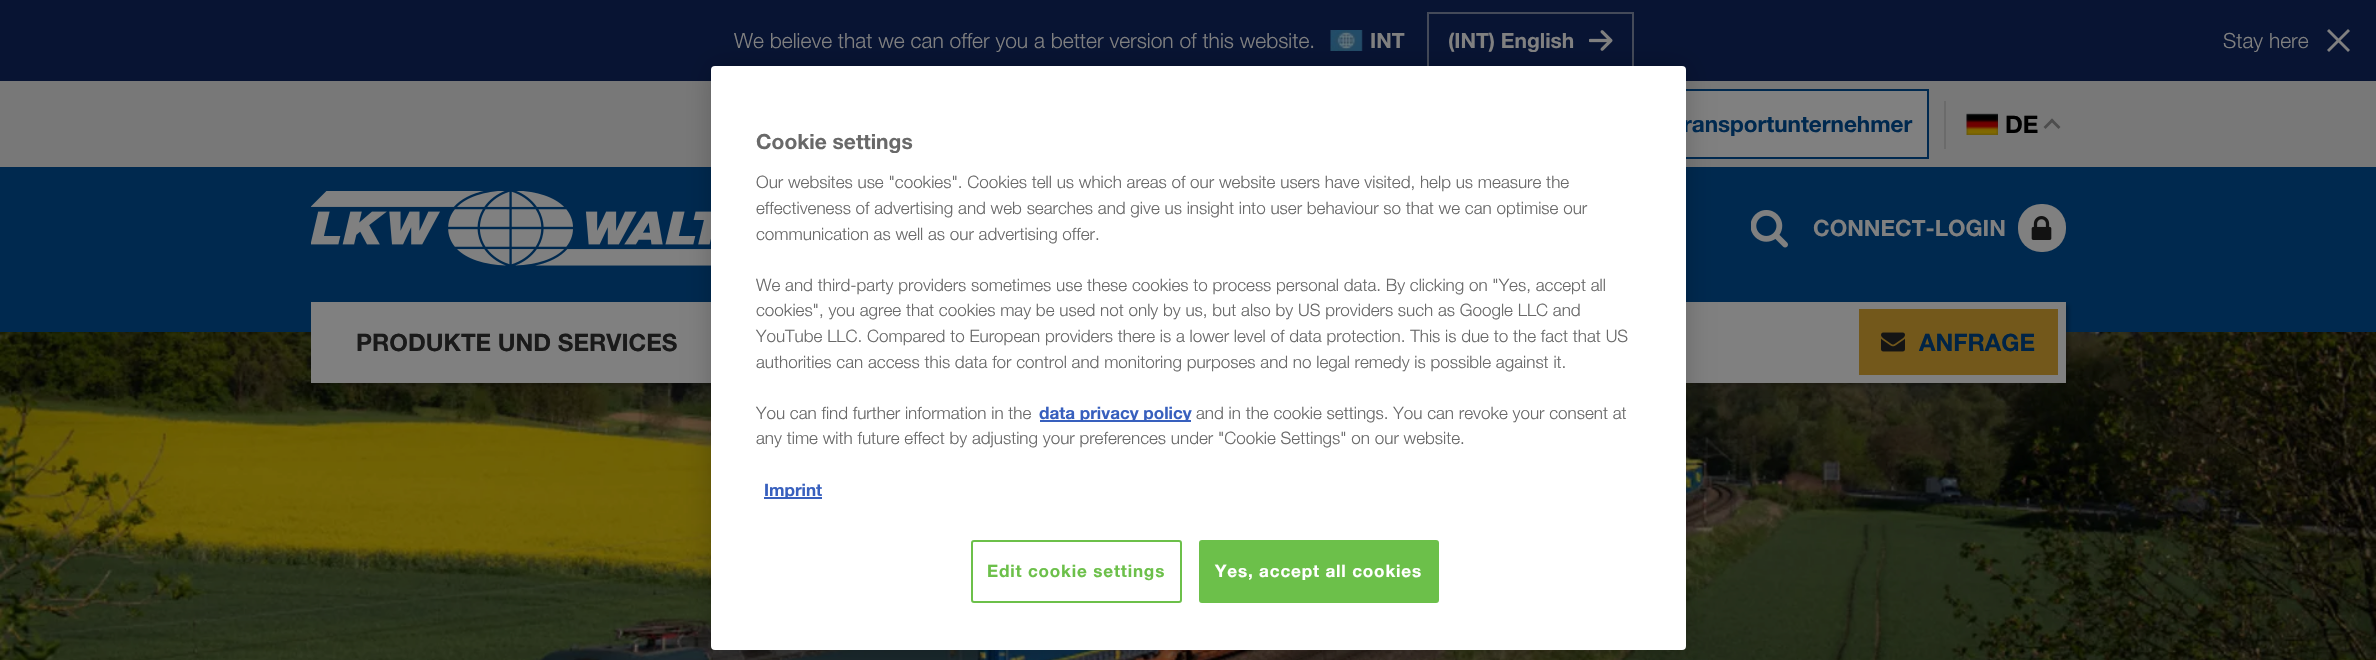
void draw(SkCanvas* canvas) {
	SkPaint fill;
	fill.setAntiAlias(true);
	auto makeFont = [&](const char* family, int weight, float size, bool italic = false) {
		SkFontStyle style(weight, SkFontStyle::kNormal_Width,
			italic ? SkFontStyle::kItalic_Slant : SkFontStyle::kUpright_Slant);
		SkFont result(fontMgr->matchFamilyStyle(family, style), size);
		result.setSubpixel(true);
		return result;
	};
	auto text = [&](const char* s, float x, float y, const SkFont& font) {
		canvas->drawString(s, x, y, font, fill);
	};
	auto spacedText = [&](const char* s, float x, float y, const SkFont& font, const SkPaint& ink, float letter, float word) {
		std::vector<SkGlyphID> glyphs(font.countText(s, strlen(s), SkTextEncoding::kUTF8));
		std::vector<float> xs(glyphs.size());
		font.textToGlyphs(s, strlen(s), SkTextEncoding::kUTF8, glyphs);
		font.getXPos(glyphs, xs, x);
		float extra = 0;
		for (size_t i = 0; i < glyphs.size(); i++) {
			xs[i] += extra;
			extra += letter + word * (glyphs[i] == font.unicharToGlyph(' '));
		}
		canvas->drawTextBlob(SkTextBlob::MakeFromPosHGlyphs(glyphs, xs, y, font), 0, 0, ink);
	};
	auto box = [&](float l, float t, float r, float b) {
		canvas->drawRect(SkRect::MakeLTRB(l, t, r, b), fill);
	};
	auto roundBox = [&](float l, float t, float r, float b, float radius) {
		canvas->drawRoundRect(SkRect::MakeLTRB(l, t, r, b), radius, radius, fill);
	};
	auto picture = [&](const char* path, float l, float t, float r, float b) {
		auto image = SkImages::DeferredFromEncodedData(SkData::MakeFromFileName(path));
		canvas->drawImageRect(image, SkRect::MakeLTRB(l, t, r, b), SkSamplingOptions());
	};
	canvas->clear(0xFFFFFFFF);
	fill.setColor(0xFF081433);
	box(0, 0, 2376, 81);
	picture("image0.png", 1330, 30, 1363, 51);
	fill.setStyle(SkPaint::kStroke_Style);
	fill.setStrokeWidth(2);
	fill.setColor(0xFF444A59);
	canvas->drawRect(SkRect::MakeLTRB(1428, 13, 1633, 68), fill);
	picture("image1.png", 1589, 30, 1613, 51);
	fill.setStyle(SkPaint::kFill_Style);
	fill.setColor(0xFF808080);
	canvas->drawPath(SkPathBuilder().moveTo(2348, 29).lineTo(2350, 31).lineTo(2329, 52).lineTo(2327, 50).close().detach(), fill);
	canvas->drawPath(SkPathBuilder().moveTo(2327, 31).lineTo(2329, 29).lineTo(2350, 50).lineTo(2348, 52).close().detach(), fill);
	fill.setColor(0xFF787878);
	box(0, 81, 2376, 167);
	fill.setColor(0xFF808080);
	box(1686, 91, 1927, 157);
	fill.setStyle(SkPaint::kStroke_Style);
	fill.setColor(0xFF00294F);
	canvas->drawRect(SkRect::MakeLTRB(1527, 90, 1928, 158), fill);
	fill.setStyle(SkPaint::kFill_Style);
	fill.setColor(0xFF6B6B6B);
	box(1944, 101, 1946, 149);
	picture("image2.png", 1966, 113, 1998, 135);
	fill.setColor(0xFF4D4D4D);
	canvas->drawPath(SkPathBuilder().moveTo(2045.5f, 129).lineTo(2043.5f, 127).lineTo(2052, 118.5f).lineTo(2054, 120.5f).close().detach(), fill);
	canvas->drawPath(SkPathBuilder().moveTo(2058.5f, 129).lineTo(2050, 120.5f).lineTo(2052, 118.5f).lineTo(2060.5f, 127).close().detach(), fill);
	fill.setColor(0xFF00294F);
	box(0, 167, 2376, 332);
	picture("image3.png", 311, 191, 711, 266);
	picture("image4.png", 1751, 210, 1788, 248);
	fill.setColor(0xFF808080);
	roundBox(2018, 204, 2066, 252, 23);
	picture("image5.png", 2031, 216, 2052, 240);
	picture("image7.png", 0, 332, 2376, 660);
	fill.setColor(0x40000000);
	fill.setMaskFilter(SkMaskFilter::MakeBlur(kNormal_SkBlurStyle, 2));
	canvas->drawRect(SkRect::MakeLTRB(314, 305, 2069, 386), fill);
	fill.setMaskFilter(nullptr);
	fill.setColor(0xFF808080);
	box(311, 302, 2066, 383);
	fill.setColor(0xFF73581B);
	box(1859, 309, 2058, 375);
	picture("image6.png", 1881, 332, 1905, 352);
	fill.setColor(0x33000000);
	fill.setMaskFilter(SkMaskFilter::MakeBlur(kNormal_SkBlurStyle, 13.5f));
	canvas->drawRoundRect(SkRect::MakeLTRB(711, 66, 1686, 650), 4, 4, fill);
	fill.setMaskFilter(nullptr);
	auto font1 = makeFont("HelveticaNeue", 300, 21);
	fill.setColor(0xFF808080);
	text("We believe that we can offer you a better version of this website.", 734, 48, font1);
	auto font2 = makeFont("HelveticaNeue", 700, 21);
	text("INT", 1370, 48, font2);
	text("(INT) English", 1448, 48, font2);
	text("Stay here", 2223, 48, font1);
	auto font3 = makeFont("HelveticaNeue", 700, 22.5f);
	fill.setColor(0xFF00294F);
	text("ransportunternehmer", 1683, 132, font3);
	auto font4 = makeFont("HelveticaNeue", 700, 24);
	fill.setColor(0xFF000000);
	text("DE", 2005, 133, font4);
	fill.setColor(0xFF808080);
	text("CONNECT-LOGIN", 1813, 236, font3);
	fill.setColor(0xFF1A1A1A);
	text("PRODUKTE UND SERVICES", 356, 351, font4);
	fill.setColor(0xFF002446);
	text("ANFRAGE", 1919, 351, font4);
	fill.setColor(0xFFFFFFFF);
	roundBox(711, 66, 1686, 650, 4);
	fill.setColor(0xFF696969);
	text("Cookie settings", 756, 149, font2);
	auto font5 = makeFont("HelveticaNeue", 300, 17.07f);
	text("Our websites use \"cookies\". Cookies tell us which areas of our website users have visited, help us measure the", 756, 188, font5);
	text("effectiveness of advertising and web searches and give us insight into user behaviour so that we can optimise our", 756, 214, font5);
	text("communication as well as our advertising offer.", 756, 240, font5);
	text("We and third-party providers sometimes use these cookies to process personal data. By clicking on \"Yes, accept all", 756, 291, font5);
	text("cookies\", you agree that cookies may be used not only by us, but also by US providers such as Google LLC and", 756, 316, font5);
	text("YouTube LLC. Compared to European providers there is a lower level of data protection. This is due to the fact that US", 756, 342, font5);
	text("authorities can access this data for control and monitoring purposes and no legal remedy is possible against it.", 756, 368, font5);
	text("You can find further information in the", 756, 419, font5);
	fill.setColor(0xFF3860BE);
	box(1040, 420, 1191, 422);
	auto font6 = makeFont("HelveticaNeue", 700, 17.07f);
	text("data privacy policy", 1039, 419, font6);
	fill.setColor(0xFF696969);
	text("and in the cookie settings. You can revoke your consent at", 1196, 419, font5);
	text("any time with future effect by adjusting your preferences under \"Cookie Settings\" on our website.", 756, 444, font5);
	fill.setColor(0xFF3860BE);
	box(764, 497, 822, 499);
	text("Imprint", 764, 496, font6);
	fill.setStyle(SkPaint::kStroke_Style);
	fill.setColor(0xFF6CC04A);
	canvas->drawRoundRect(SkRect::MakeLTRB(972, 541, 1181, 602), 2, 2, fill);
	fill.setStyle(SkPaint::kFill_Style);
	spacedText("Edit cookie settings", 987, 577, font6, fill, 0.85f, 0);
	canvas->drawRoundRect(SkRect::MakeLTRB(1200, 541, 1438, 602), 2, 2, fill);
	fill.setStyle(SkPaint::kStroke_Style);
	canvas->drawRoundRect(SkRect::MakeLTRB(1200, 541, 1438, 602), 2, 2, fill);
	fill.setStyle(SkPaint::kFill_Style);
	fill.setColor(0xFFFFFFFF);
	spacedText("Yes, accept all cookies", 1215, 577, font6, fill, 0.85f, 0);
}
